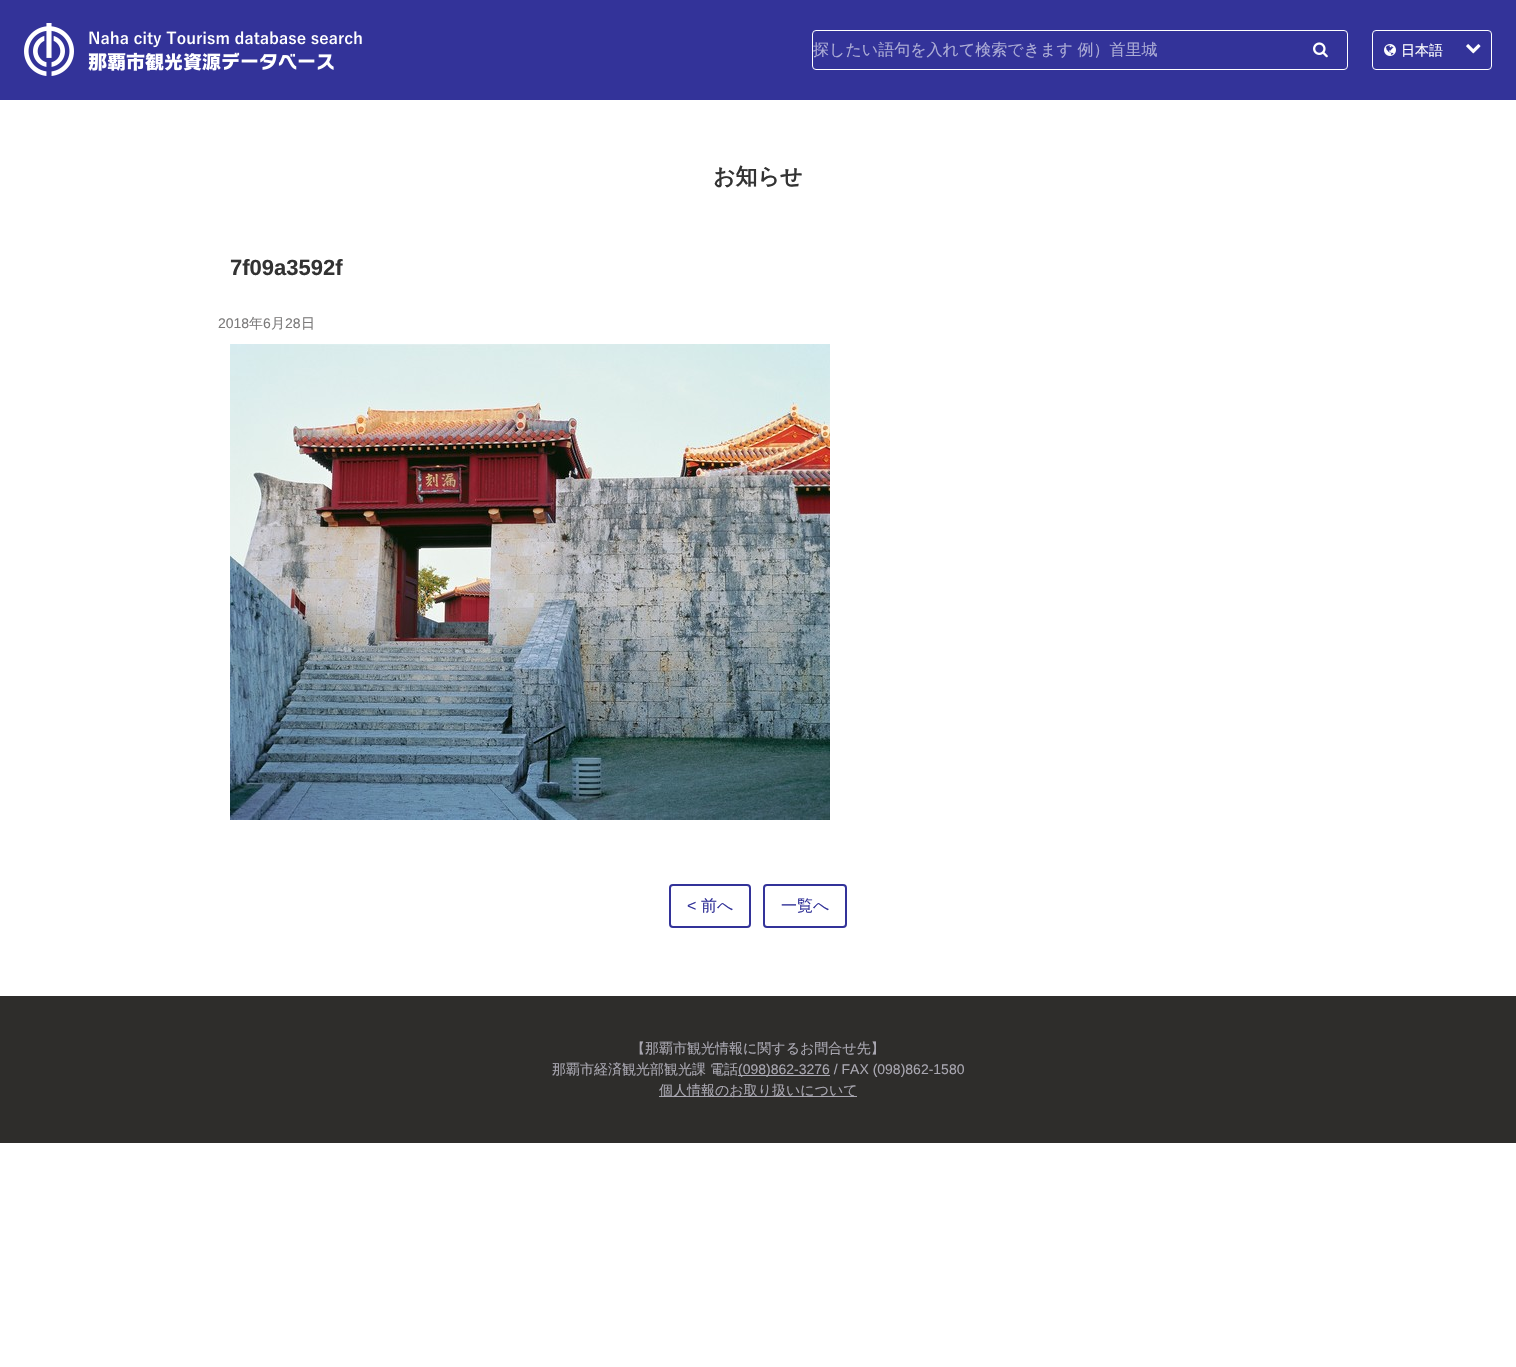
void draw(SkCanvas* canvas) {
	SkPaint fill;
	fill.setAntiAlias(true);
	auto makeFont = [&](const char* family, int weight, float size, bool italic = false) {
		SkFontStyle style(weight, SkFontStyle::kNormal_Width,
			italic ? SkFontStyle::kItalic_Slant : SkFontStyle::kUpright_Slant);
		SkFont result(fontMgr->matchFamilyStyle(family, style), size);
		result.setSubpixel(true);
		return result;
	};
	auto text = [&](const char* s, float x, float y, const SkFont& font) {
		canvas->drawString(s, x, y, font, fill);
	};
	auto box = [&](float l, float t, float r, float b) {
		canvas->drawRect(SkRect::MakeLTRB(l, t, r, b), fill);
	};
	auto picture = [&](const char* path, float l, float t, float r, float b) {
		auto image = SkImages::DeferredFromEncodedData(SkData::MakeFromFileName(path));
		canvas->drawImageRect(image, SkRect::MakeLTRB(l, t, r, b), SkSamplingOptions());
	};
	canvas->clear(0xFFFFFFFF);
	fill.setColor(0xFF333399);
	box(0, 0, 1516, 100);
	picture("image0.png", 24, 23, 362, 76);
	fill.setStyle(SkPaint::kStroke_Style);
	fill.setStrokeWidth(1);
	fill.setColor(0xFFFFFFFF);
	canvas->drawRoundRect(SkRect::MakeLTRB(812.5f, 30.5f, 1347.5f, 69.5f), 3.5f, 3.5f, fill);
	picture("image1.png", 1313, 42, 1328, 58);
	canvas->drawRoundRect(SkRect::MakeLTRB(1372.5f, 30.5f, 1491.5f, 69.5f), 3.5f, 3.5f, fill);
	picture("image2.png", 1384, 44, 1396, 56);
	picture("image3.png", 1466, 44, 1481, 54);
	picture("image4.png", 230, 344, 830, 820);
	fill.setStrokeWidth(2);
	fill.setColor(0xFF333399);
	canvas->drawRoundRect(SkRect::MakeLTRB(670, 885, 750, 927), 3, 3, fill);
	canvas->drawRoundRect(SkRect::MakeLTRB(764, 885, 846, 927), 3, 3, fill);
	fill.setStyle(SkPaint::kFill_Style);
	fill.setColor(0xFF2E2D2B);
	box(0, 996, 1516, 1143);
	fill.setColor(0xFFA9A7B1);
	box(738, 1075, 830, 1076);
	box(659, 1096, 857, 1097);
	auto font1 = makeFont("WenQuanYi Zen Hei", 500, 16);
	fill.setColor(0xFFADADD6);
	text("探したい語句を入れて検索できます 例）首里城", 813, 55, font1);
	auto font2 = makeFont("WenQuanYi Zen Hei", 500, 14);
	fill.setColor(0xFFFFFFFF);
	text("日本語", 1401, 55, font2);
	auto font3 = makeFont("WenQuanYi Zen Hei", 700, 22);
	fill.setColor(0xFF333333);
	text("お知らせ", 713, 184, font3);
	auto font4 = makeFont("Liberation Sans", 700, 22);
	text("7f09a3592f", 230, 275, font4);
	auto font5 = makeFont("Liberation Sans", 400, 14);
	fill.setColor(0xFF7B7A7A);
	text("2018", 218, 328, font5);
	text("年", 249, 328, font2);
	text("6", 263, 328, font5);
	text("月", 271, 328, font2);
	text("28", 285, 328, font5);
	text("日", 301, 328, font2);
	auto font6 = makeFont("Liberation Sans", 400, 16);
	fill.setColor(0xFF333399);
	text("<", 687, 911, font6);
	text("前へ", 701, 911, font1);
	text("一覧へ", 781, 911, font1);
	fill.setColor(0xFFA9A7B1);
	text("【那覇市観光情報に関するお問合せ先】", 631, 1053, font2);
	text("那覇市経済観光部観光課", 552, 1074, font2);
	text("電話", 710, 1074, font2);
	text("(098)862-3276 / FAX (098)862-1580", 738, 1074, font5);
	text("個人情報のお取り扱いについて", 659, 1095, font2);
}
